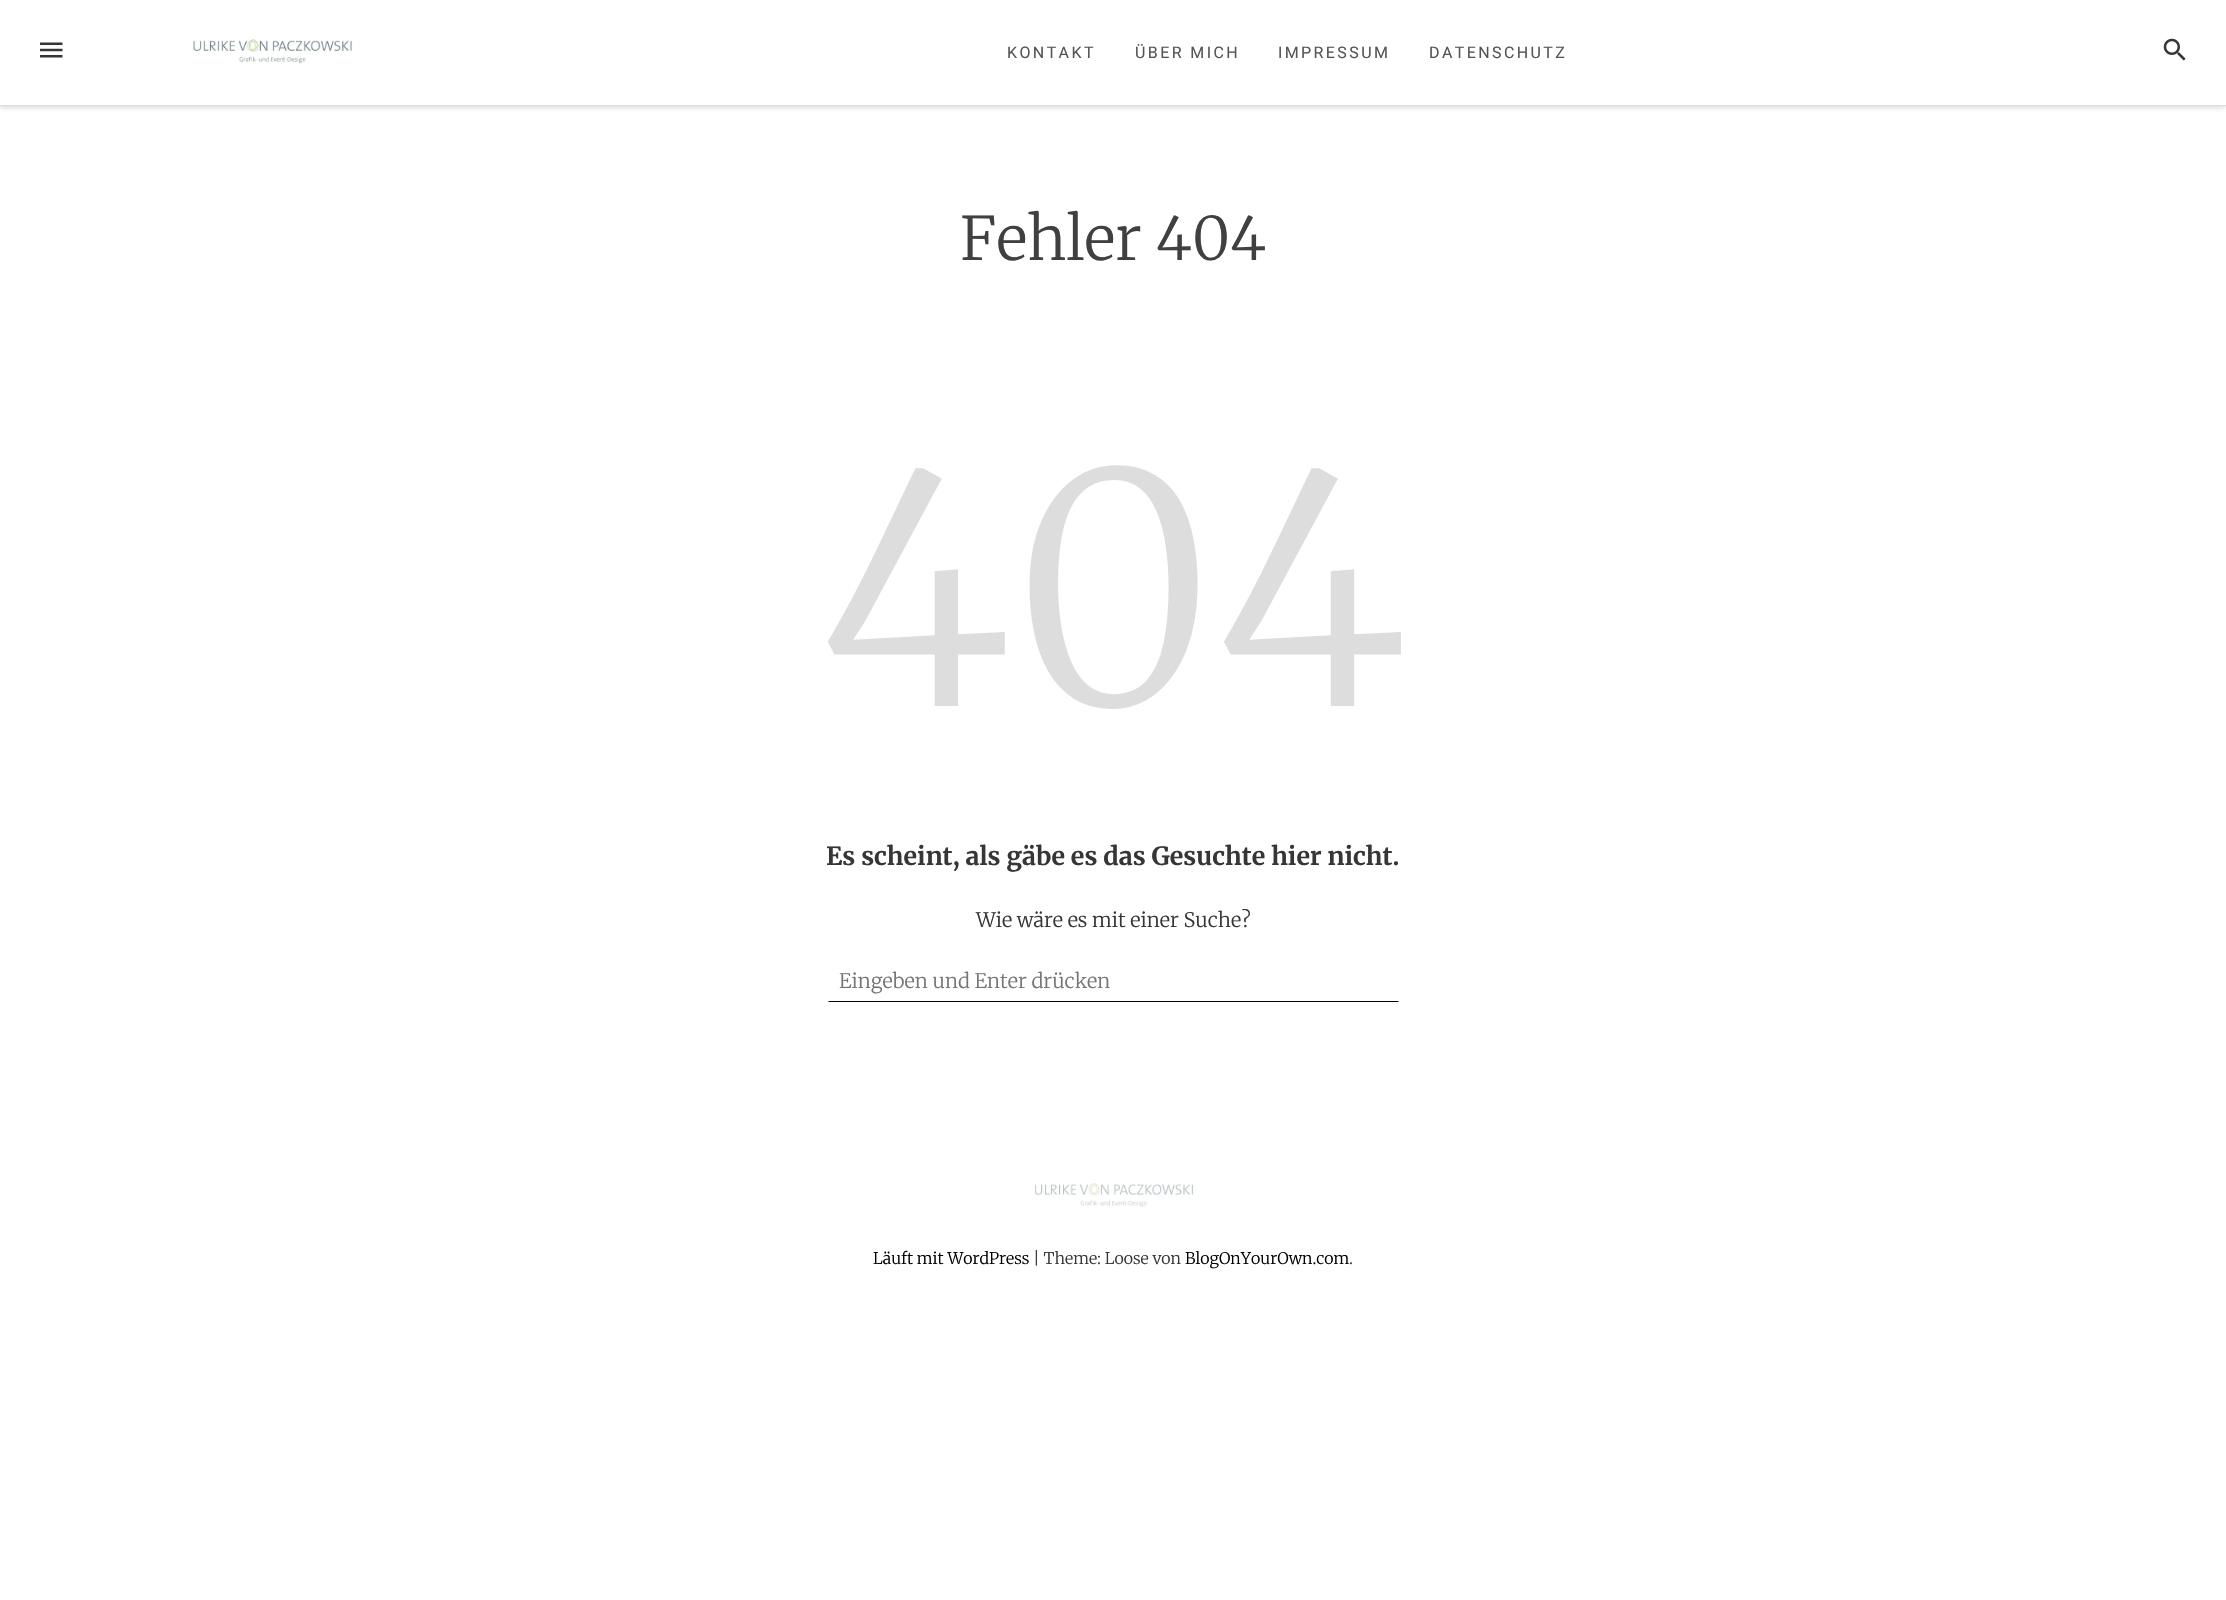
void draw(SkCanvas* canvas) {
	SkPaint fill;
	fill.setAntiAlias(true);
	auto makeFont = [&](const char* family, int weight, float size, bool italic = false) {
		SkFontStyle style(weight, SkFontStyle::kNormal_Width,
			italic ? SkFontStyle::kItalic_Slant : SkFontStyle::kUpright_Slant);
		SkFont result(fontMgr->matchFamilyStyle(family, style), size);
		result.setSubpixel(true);
		return result;
	};
	auto text = [&](const char* s, float x, float y, const SkFont& font) {
		canvas->drawString(s, x, y, font, fill);
	};
	auto spacedText = [&](const char* s, float x, float y, const SkFont& font, const SkPaint& ink, float letter, float word) {
		std::vector<SkGlyphID> glyphs(font.countText(s, strlen(s), SkTextEncoding::kUTF8));
		std::vector<float> xs(glyphs.size());
		font.textToGlyphs(s, strlen(s), SkTextEncoding::kUTF8, glyphs);
		font.getXPos(glyphs, xs, x);
		float extra = 0;
		for (size_t i = 0; i < glyphs.size(); i++) {
			xs[i] += extra;
			extra += letter + word * (glyphs[i] == font.unicharToGlyph(' '));
		}
		canvas->drawTextBlob(SkTextBlob::MakeFromPosHGlyphs(glyphs, xs, y, font), 0, 0, ink);
	};
	auto box = [&](float l, float t, float r, float b) {
		canvas->drawRect(SkRect::MakeLTRB(l, t, r, b), fill);
	};
	auto picture = [&](const char* path, float l, float t, float r, float b) {
		auto image = SkImages::DeferredFromEncodedData(SkData::MakeFromFileName(path));
		canvas->drawImageRect(image, SkRect::MakeLTRB(l, t, r, b), SkSamplingOptions());
	};
	canvas->clear(0xFFFFFFFF);
	canvas->save();
	canvas->clipRect(SkRect::MakeLTRB(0, 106, 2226, 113));
	fill.setColor(0xFFDDDDDD);
	fill.setMaskFilter(SkMaskFilter::MakeBlur(kNormal_SkBlurStyle, 2.5f));
	canvas->drawRect(SkRect::MakeLTRB(0, 1, 2226, 108), fill);
	fill.setMaskFilter(nullptr);
	canvas->restore();
	box(0, 105, 2226, 106);
	picture("image0.png", 40, 42, 63, 58);
	picture("image1.png", 193, 39, 353, 64);
	picture("image2.png", 2163, 38, 2186, 61);
	fill.setColor(0xFF000000);
	canvas->drawPath(SkPathBuilder().moveTo(1399, 1002).lineTo(828, 1002).lineTo(829, 1001).lineTo(1398, 1001).close().detach(), fill);
	picture("image3.png", 1034, 1183, 1194, 1208);
	auto font1 = makeFont("Roboto", 400, 16);
	fill.setColor(0xFF555555);
	spacedText("KONTAKT", 1007, 58, font1, fill, 2.4f, 0);
	spacedText("ÜBER MICH", 1135, 58, font1, fill, 2.4f, 0);
	spacedText("IMPRESSUM", 1278, 58, font1, fill, 2.4f, 0);
	spacedText("DATENSCHUTZ", 1429, 58, font1, fill, 2.4f, 0);
	auto font2 = makeFont("Merriweather", 300, 60);
	fill.setColor(0xFF404040);
	text("Fehler 404", 960, 260, font2);
	auto font3 = makeFont("Merriweather", 300, 320);
	fill.setColor(0xFFDDDDDD);
	text("404", 819, 706, font3);
	auto font4 = makeFont("Merriweather", 700, 25);
	fill.setColor(0xFF363636);
	text("Es scheint, als gäbe es das Gesuchte hier nicht.", 826, 865, font4);
	auto font5 = makeFont("Merriweather", 300, 20);
	text("Wie wäre es mit einer Suche?", 976, 927, font5);
	fill.setColor(0xFF757575);
	text("Eingeben und Enter drücken", 839, 988, font5);
	auto font6 = makeFont("Merriweather", 300, 16);
	fill.setColor(0xFF000000);
	text("Läuft mit WordPress", 873, 1264, font6);
	fill.setColor(0xFF363636);
	text("| Theme: Loose von", 1033, 1264, font6);
	fill.setColor(0xFF000000);
	text("BlogOnYourOwn.com", 1185, 1264, font6);
	fill.setColor(0xFF363636);
	text(".", 1349, 1264, font6);
}
